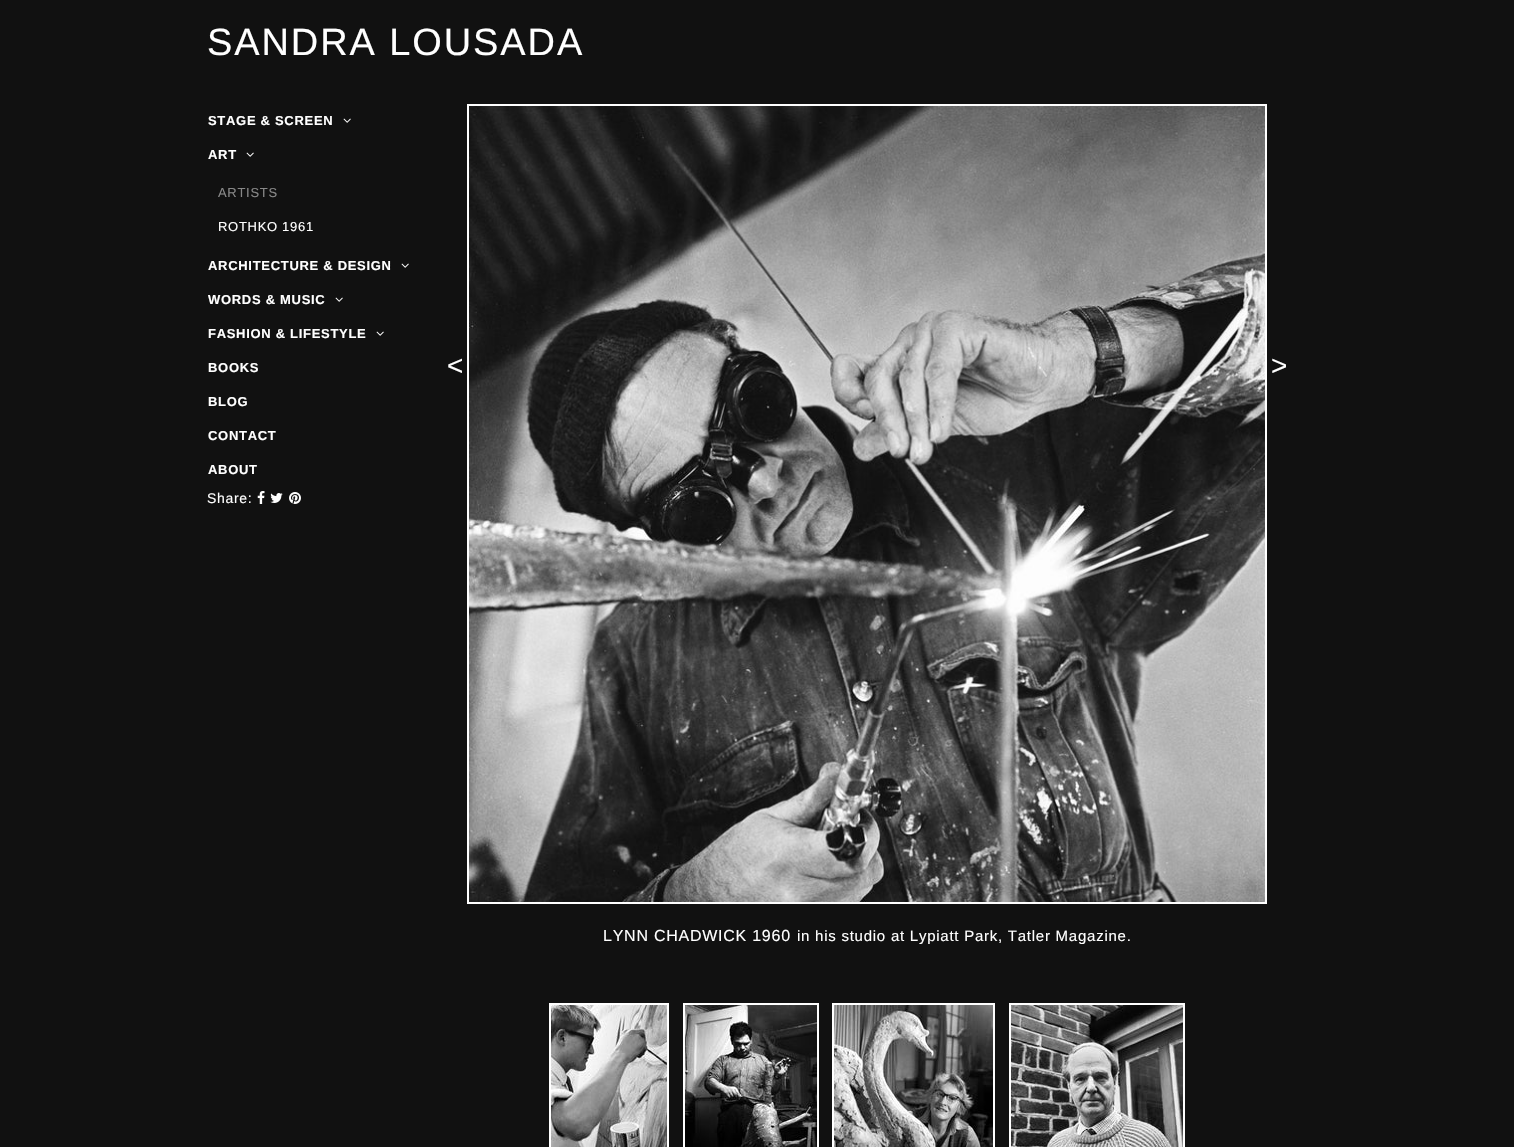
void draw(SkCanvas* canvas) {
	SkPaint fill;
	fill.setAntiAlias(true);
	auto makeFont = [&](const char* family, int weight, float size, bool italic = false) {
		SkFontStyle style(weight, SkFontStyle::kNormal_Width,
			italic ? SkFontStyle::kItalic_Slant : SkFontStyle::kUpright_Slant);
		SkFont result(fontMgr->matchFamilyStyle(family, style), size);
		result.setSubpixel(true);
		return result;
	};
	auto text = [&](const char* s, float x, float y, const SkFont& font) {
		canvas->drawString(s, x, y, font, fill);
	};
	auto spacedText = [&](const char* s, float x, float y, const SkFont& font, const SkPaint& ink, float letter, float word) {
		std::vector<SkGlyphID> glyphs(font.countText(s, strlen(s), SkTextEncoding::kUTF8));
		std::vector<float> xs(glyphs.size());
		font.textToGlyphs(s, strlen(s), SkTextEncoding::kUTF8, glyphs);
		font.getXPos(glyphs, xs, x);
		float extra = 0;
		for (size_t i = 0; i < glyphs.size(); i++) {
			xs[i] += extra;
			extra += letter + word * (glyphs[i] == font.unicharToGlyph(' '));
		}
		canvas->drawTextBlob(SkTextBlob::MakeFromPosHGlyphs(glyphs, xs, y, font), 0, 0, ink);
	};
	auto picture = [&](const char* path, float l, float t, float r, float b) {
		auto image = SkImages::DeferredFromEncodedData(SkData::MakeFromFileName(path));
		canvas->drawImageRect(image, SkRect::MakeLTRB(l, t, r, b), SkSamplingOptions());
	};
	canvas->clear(0xFF111111);
	picture("image0.png", 343, 118, 351, 123);
	picture("image0.png", 246, 152, 254, 157);
	picture("image0.png", 401, 263, 409, 268);
	picture("image0.png", 335, 297, 343, 302);
	picture("image0.png", 376, 331, 384, 336);
	picture("image1.png", 257, 491, 265, 504);
	picture("image2.png", 270, 493, 283, 503);
	picture("image3.png", 289, 492, 301, 504);
	fill.setStyle(SkPaint::kStroke_Style);
	fill.setStrokeWidth(2);
	fill.setColor(0xFFFFFFFF);
	canvas->drawRect(SkRect::MakeLTRB(468, 105, 1266, 903), fill);
	picture("image4.png", 469, 106, 1265, 902);
	canvas->drawRect(SkRect::MakeLTRB(550, 1004, 668, 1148), fill);
	picture("image5.png", 551, 1005, 667, 1147);
	canvas->drawRect(SkRect::MakeLTRB(684, 1004, 818, 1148), fill);
	picture("image6.png", 685, 1005, 817, 1147);
	canvas->drawRect(SkRect::MakeLTRB(833, 1004, 994, 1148), fill);
	picture("image7.png", 834, 1005, 993, 1147);
	canvas->drawRect(SkRect::MakeLTRB(1010, 1004, 1184, 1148), fill);
	picture("image8.png", 1011, 1005, 1183, 1147);
	auto font1 = makeFont("Liberation Sans", 400, 38);
	fill.setStyle(SkPaint::kFill_Style);
	spacedText("SANDRA LOUSADA", 207, 55, font1, fill, 1.9f, 0);
	auto font2 = makeFont("Liberation Sans", 700, 13);
	spacedText("STAGE & SCREEN", 208, 125, font2, fill, 0.7f, 0);
	spacedText("ART", 208, 159, font2, fill, 0.7f, 0);
	auto font3 = makeFont("Liberation Sans", 400, 13);
	fill.setColor(0xFF888888);
	spacedText("ARTISTS", 218, 197, font3, fill, 0.7f, 0);
	fill.setColor(0xFFFFFFFF);
	spacedText("ROTHKO 1961", 218, 231, font3, fill, 0.7f, 0);
	spacedText("ARCHITECTURE & DESIGN", 208, 270, font2, fill, 0.7f, 0);
	spacedText("WORDS & MUSIC", 208, 304, font2, fill, 0.7f, 0);
	spacedText("FASHION & LIFESTYLE", 208, 338, font2, fill, 0.7f, 0);
	spacedText("BOOKS", 208, 372, font2, fill, 0.7f, 0);
	spacedText("BLOG", 208, 406, font2, fill, 0.7f, 0);
	spacedText("CONTACT", 208, 440, font2, fill, 0.7f, 0);
	spacedText("ABOUT", 208, 474, font2, fill, 0.7f, 0);
	auto font4 = makeFont("Liberation Sans", 400, 14);
	spacedText("Share:", 207, 503, font4, fill, 0.7f, 0);
	auto font5 = makeFont("Liberation Sans", 400, 28);
	text("<", 447, 375, font5);
	text(">", 1271, 375, font5);
	auto font6 = makeFont("Liberation Sans", 400, 16);
	spacedText("LYNN CHADWICK 1960", 603, 941, font6, fill, 0.75f, 0);
	auto font7 = makeFont("Liberation Sans", 400, 15);
	spacedText("in his studio at Lypiatt Park, Tatler Magazine.", 797, 941, font7, fill, 0.75f, 0);
}
